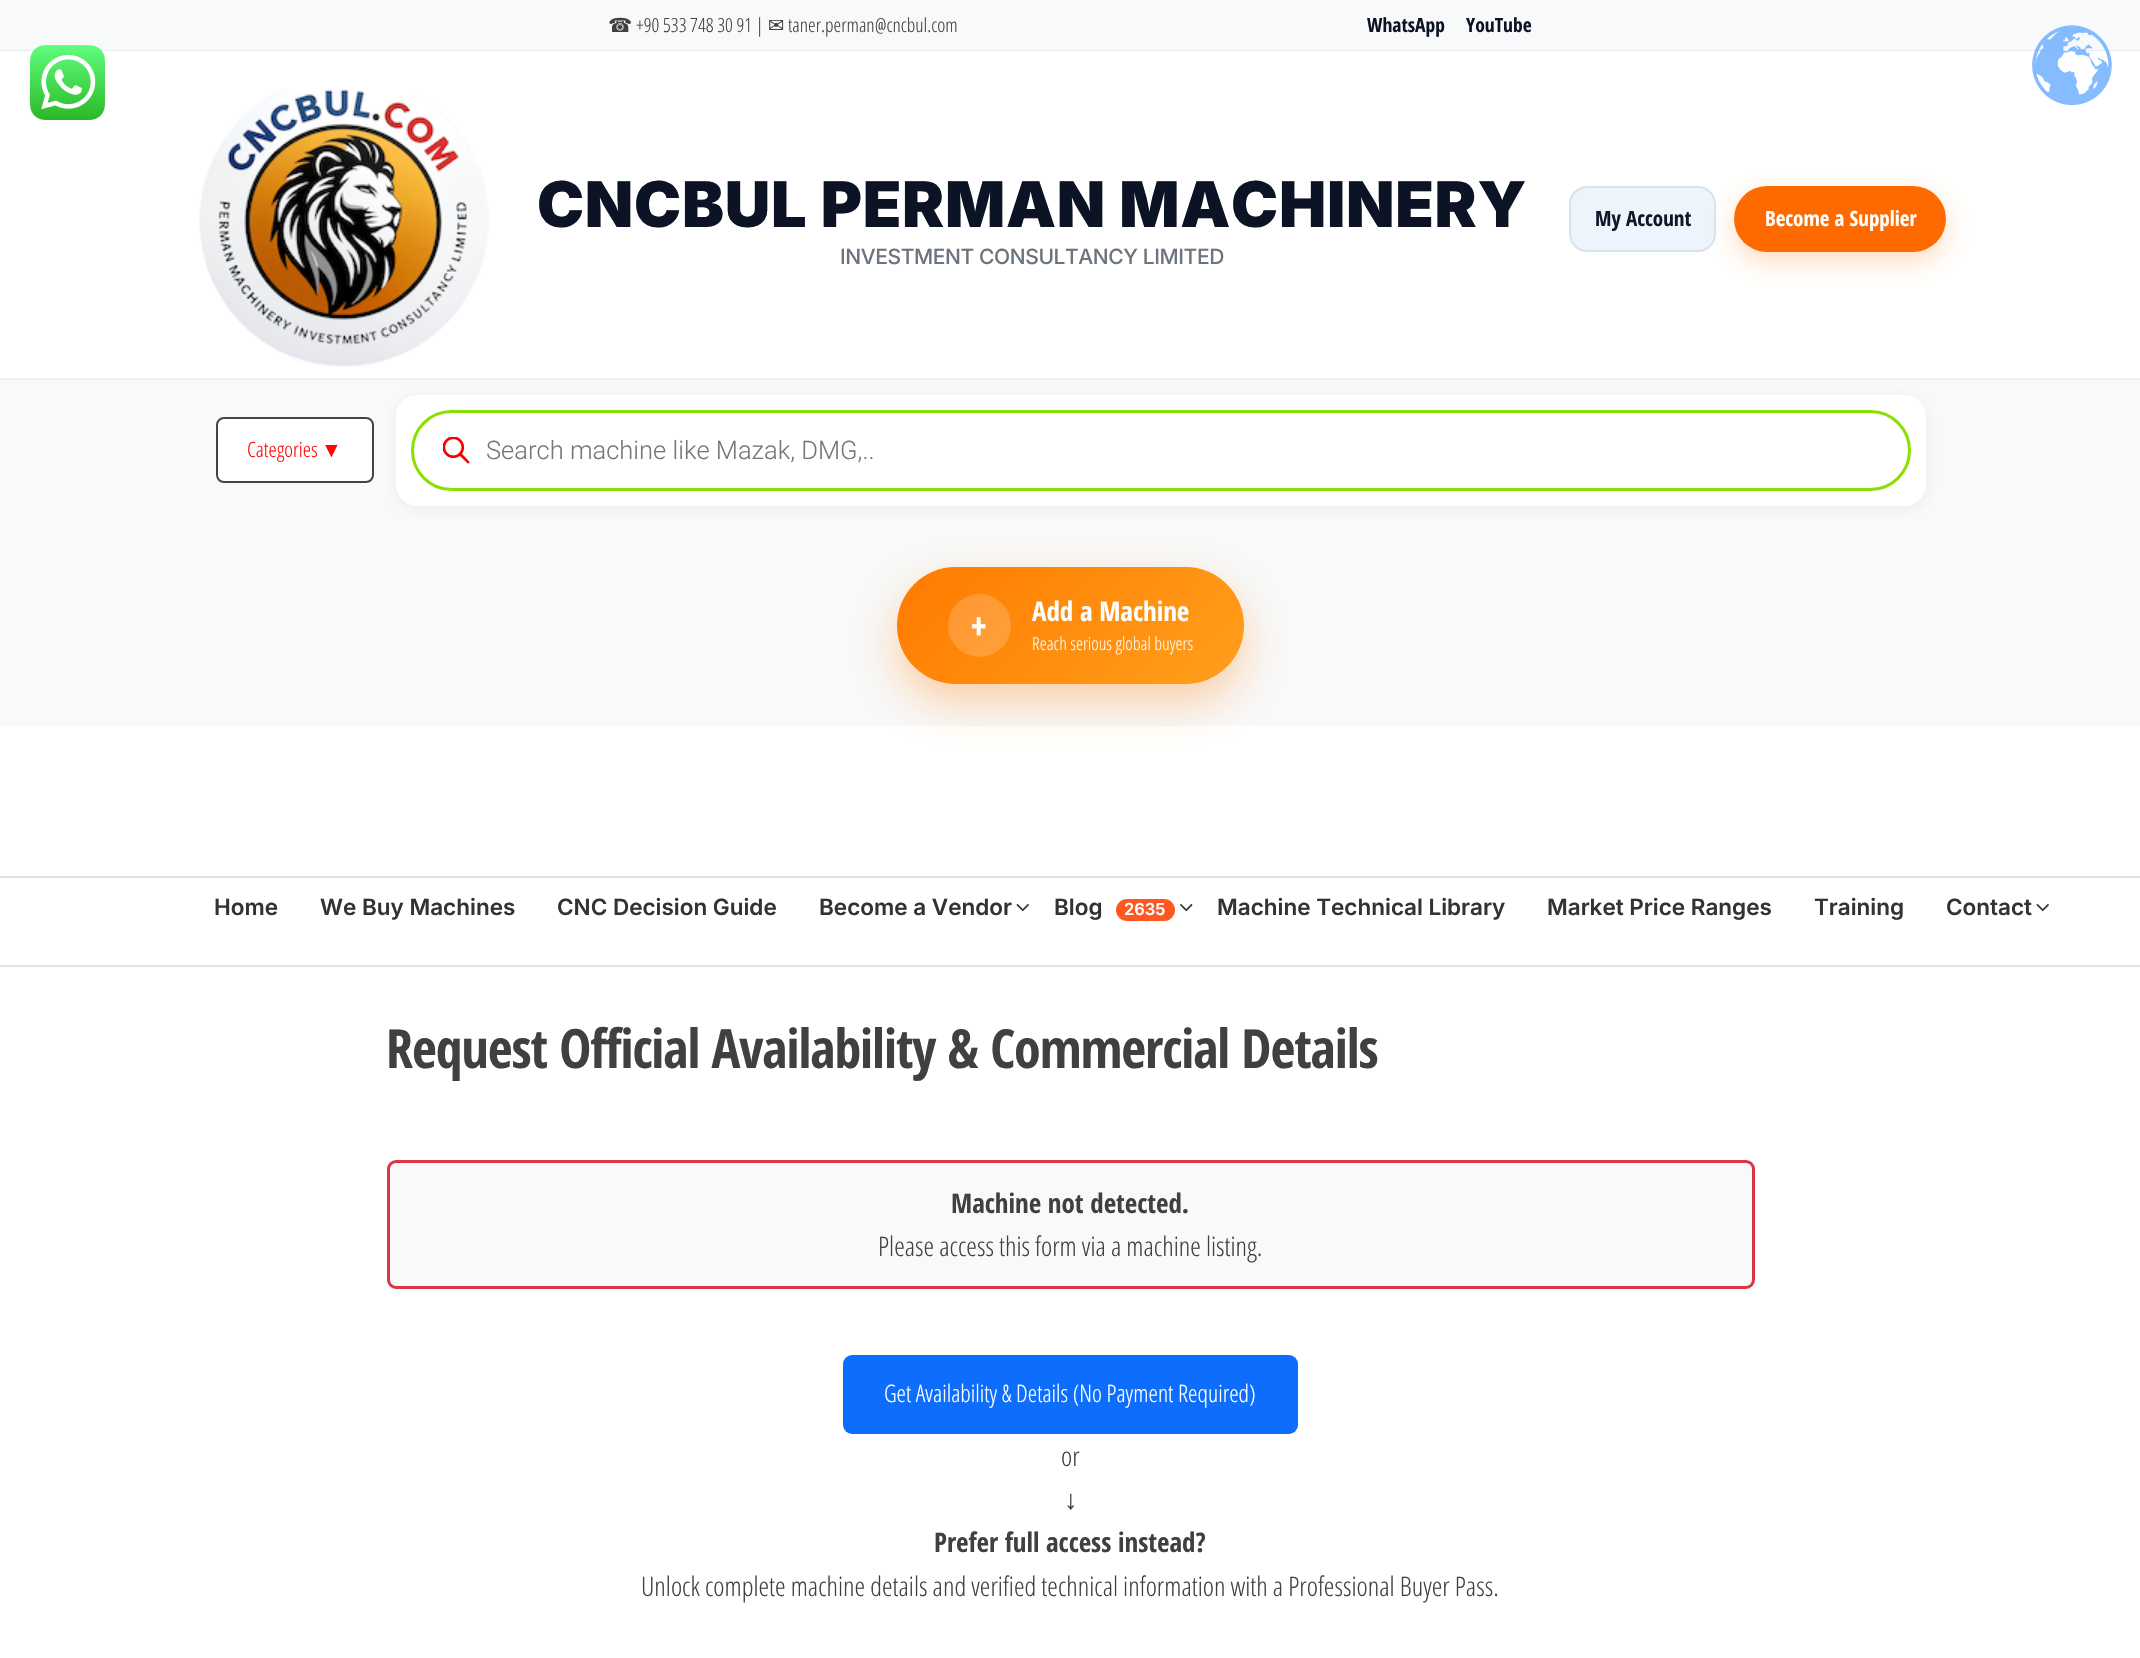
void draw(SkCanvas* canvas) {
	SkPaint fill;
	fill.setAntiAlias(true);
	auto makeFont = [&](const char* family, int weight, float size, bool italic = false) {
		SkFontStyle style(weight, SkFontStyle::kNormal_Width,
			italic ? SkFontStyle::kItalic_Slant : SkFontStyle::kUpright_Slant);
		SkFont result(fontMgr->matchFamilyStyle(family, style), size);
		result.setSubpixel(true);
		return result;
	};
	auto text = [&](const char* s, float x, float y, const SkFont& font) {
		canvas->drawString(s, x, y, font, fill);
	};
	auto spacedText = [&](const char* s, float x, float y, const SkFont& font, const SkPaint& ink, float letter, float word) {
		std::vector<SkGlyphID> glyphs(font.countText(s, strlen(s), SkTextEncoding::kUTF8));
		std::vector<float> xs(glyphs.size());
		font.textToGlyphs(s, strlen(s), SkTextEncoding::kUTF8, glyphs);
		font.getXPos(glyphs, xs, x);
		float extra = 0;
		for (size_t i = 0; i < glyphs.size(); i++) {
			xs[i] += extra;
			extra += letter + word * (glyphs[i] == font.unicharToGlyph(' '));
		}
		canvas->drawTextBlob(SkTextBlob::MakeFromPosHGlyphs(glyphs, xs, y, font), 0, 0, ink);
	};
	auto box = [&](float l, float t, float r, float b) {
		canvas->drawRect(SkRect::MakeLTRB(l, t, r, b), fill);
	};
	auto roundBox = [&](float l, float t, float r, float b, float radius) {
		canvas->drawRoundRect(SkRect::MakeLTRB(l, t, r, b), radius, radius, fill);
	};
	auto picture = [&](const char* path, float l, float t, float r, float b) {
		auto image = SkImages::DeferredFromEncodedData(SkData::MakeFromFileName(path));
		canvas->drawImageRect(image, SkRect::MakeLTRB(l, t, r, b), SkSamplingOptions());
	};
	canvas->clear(0xFFFFFFFF);
	fill.setColor(0xFFF8F9FA);
	box(0, 0, 2140, 50);
	fill.setColor(0xFFE6EEF5);
	box(0, 50, 2140, 51);
	picture("image0.png", 30, 45, 105, 120);
	fill.setColor(0xFFF1F1F2);
	box(0, 378, 2140, 380);
	picture("image1.png", 199, 89, 489, 367);
	fill.setColor(0xFFEEF4FB);
	canvas->drawRoundRect(SkRect::MakeLTRB(1570, 187, 1715, 251), 17, 17, fill);
	fill.setStyle(SkPaint::kStroke_Style);
	fill.setStrokeWidth(2);
	fill.setColor(0xFFD7E3F0);
	canvas->drawRoundRect(SkRect::MakeLTRB(1570, 187, 1715, 251), 17, 17, fill);
	fill.setStyle(SkPaint::kFill_Style);
	fill.setColor(0x40FF6A00);
	fill.setMaskFilter(SkMaskFilter::MakeBlur(kNormal_SkBlurStyle, 13.5f));
	canvas->drawRoundRect(SkRect::MakeLTRB(1734, 195, 1946, 261), 33, 33, fill);
	fill.setMaskFilter(nullptr);
	fill.setColor(0xFFFF6A00);
	roundBox(1734, 186, 1946, 252, 33);
	fill.setColor(0xFFF8F9FA);
	box(0, 380, 2140, 726);
	fill.setColor(0xFFFFFFFF);
	canvas->drawRoundRect(SkRect::MakeLTRB(217, 418, 373, 482), 7, 7, fill);
	fill.setStyle(SkPaint::kStroke_Style);
	fill.setColor(0xFF444444);
	canvas->drawRoundRect(SkRect::MakeLTRB(217, 418, 373, 482), 7, 7, fill);
	fill.setStyle(SkPaint::kFill_Style);
	fill.setColor(0x0F0F172A);
	fill.setMaskFilter(SkMaskFilter::MakeBlur(kNormal_SkBlurStyle, 7.5f));
	canvas->drawRoundRect(SkRect::MakeLTRB(396, 398, 1926, 509), 21, 21, fill);
	fill.setMaskFilter(nullptr);
	fill.setColor(0xFFFFFFFF);
	roundBox(396, 395, 1926, 506, 21);
	fill.setStyle(SkPaint::kStroke_Style);
	fill.setStrokeWidth(3);
	fill.setColor(0xFF8AE000);
	canvas->drawRoundRect(SkRect::MakeLTRB(412.5f, 411.5f, 1909.5f, 489.5f), 39, 39, fill);
	picture("image2.png", 443, 437, 470, 464);
	fill.setStyle(SkPaint::kFill_Style);
	fill.setColor(0x59FF7A00);
	fill.setMaskFilter(SkMaskFilter::MakeBlur(kNormal_SkBlurStyle, 22.5f));
	canvas->drawRoundRect(SkRect::MakeLTRB(897, 585, 1244, 702), 58.5f, 58.5f, fill);
	fill.setMaskFilter(nullptr);
	{
		const SkColor colors[] = {0xFFFF7A00, 0xFFFF9F1C};
		const float stops[] = {0, 1};
		const SkPoint ends[] = {{954, 510}, {1186, 741}};
		fill.setShader(SkGradientShader::MakeLinear(ends, colors, stops, 2, SkTileMode::kClamp));
		fill.setAlpha(255);
	}
	roundBox(897, 567, 1244, 684, 58.5f);
	fill.setShader(nullptr);
	fill.setColor(0x2EFFFFFF);
	canvas->drawCircle(979.5f, 625.5f, 31.5f, fill);
	fill.setColor(0xFFE2E2E2);
	box(0, 876, 2140, 878);
	box(0, 965, 2140, 967);
	picture("image3.png", 1016, 904, 1029, 912);
	fill.setColor(0xFFFF5722);
	roundBox(1116, 899, 1175, 921, 11);
	picture("image4.png", 1180, 904, 1193, 912);
	picture("image3.png", 2036, 904, 2049, 912);
	fill.setColor(0xFFF8F9FA);
	canvas->drawRoundRect(SkRect::MakeLTRB(388.5f, 1161.5f, 1753.5f, 1287.5f), 7.5f, 7.5f, fill);
	fill.setStyle(SkPaint::kStroke_Style);
	fill.setColor(0xFFDC3545);
	canvas->drawRoundRect(SkRect::MakeLTRB(388.5f, 1161.5f, 1753.5f, 1287.5f), 7.5f, 7.5f, fill);
	fill.setStyle(SkPaint::kFill_Style);
	fill.setColor(0xFF0D6EFD);
	roundBox(843, 1355, 1298, 1434, 9);
	picture("image5.png", 2032, 25, 2112, 106);
	auto font1 = makeFont("DejaVu Sans", 400, 19.5f);
	fill.setColor(0xFF404040);
	text("☎", 608, 32, font1);
	auto font2 = makeFont("Open Sans Condensed", 300, 19.5f);
	text("+90 533 748 30 91 |", 636, 32, font2);
	text("✉", 768, 32, font1);
	text("taner.perman@cncbul.com", 788, 32, font2);
	auto font3 = makeFont("Open Sans Condensed", 700, 19.5f);
	fill.setColor(0xFF0B1324);
	text("WhatsApp", 1367, 32, font3);
	text("YouTube", 1466, 32, font3);
	auto font4 = makeFont("Inter", 900, 63);
	spacedText("CNCBUL PERMAN MACHINERY", 537, 227, font4, fill, 0.75f, 0);
	auto font5 = makeFont("Inter", 500, 21);
	fill.setColor(0xFF6C757D);
	spacedText("INVESTMENT CONSULTANCY LIMITED", 840, 264, font5, fill, -0.4f, 0);
	auto font6 = makeFont("Open Sans Condensed", 700, 21);
	fill.setColor(0xFF0F172A);
	text("My Account", 1595, 226, font6);
	fill.setColor(0xFFFFFFFF);
	text("Become a Supplier", 1765, 226, font6);
	auto font7 = makeFont("Open Sans Condensed", 300, 21);
	fill.setColor(0xFFFF0707);
	text("Categories", 247, 457, font7);
	auto font8 = makeFont("Liberation Sans", 400, 21);
	text("▼", 321, 457, font8);
	auto font9 = makeFont("Roboto", 300, 25.5f);
	fill.setColor(0xFF777777);
	text("Search machine like Mazak, DMG,..", 486, 459, font9);
	auto font10 = makeFont("Open Sans Condensed", 700, 39);
	fill.setColor(0xFFFFFFFF);
	text("+", 970, 640, font10);
	auto font11 = makeFont("Open Sans Condensed", 700, 27);
	text("Add a Machine", 1032, 621, font11);
	auto font12 = makeFont("Open Sans Condensed", 300, 18);
	fill.setColor(0xFFFFF4E7);
	text("Reach serious global buyers", 1032, 650, font12);
	auto font13 = makeFont("Inter", 600, 22.5f);
	fill.setColor(0xFF333333);
	text("Home", 214, 915, font13);
	text("We Buy Machines", 320, 915, font13);
	text("CNC Decision Guide", 557, 915, font13);
	text("Become a Vendor", 819, 915, font13);
	text("Blog", 1054, 915, font13);
	auto font14 = makeFont("Inter", 600, 16.5f);
	fill.setColor(0xFFFFFFFF);
	text("2635", 1124, 915, font14);
	fill.setColor(0xFF333333);
	text("Machine Technical Library", 1217, 915, font13);
	text("Market Price Ranges", 1547, 915, font13);
	text("Training", 1814, 915, font13);
	text("Contact", 1946, 915, font13);
	auto font15 = makeFont("Open Sans Condensed", 700, 54);
	fill.setColor(0xFF404040);
	spacedText("Request Official Availability & Commercial Details", 386, 1068, font15, fill, -1.08f, 0);
	text("Machine not detected.", 951, 1213, font11);
	auto font16 = makeFont("Open Sans Condensed", 300, 27);
	text("Please access this form via a machine listing.", 878, 1256, font16);
	auto font17 = makeFont("Open Sans Condensed", 300, 24);
	fill.setColor(0xFFFFFFFF);
	text("Get Availability & Details (No Payment Required)", 884, 1402, font17);
	fill.setColor(0xFF404040);
	text("or", 1061, 1466, font16);
	auto font18 = makeFont("Liberation Sans", 400, 27);
	text("↓", 1064, 1509, font18);
	text("Prefer full access instead?", 934, 1552, font11);
	text("Unlock complete machine details and verified technical information with a Professional Buyer Pass.", 641, 1596, font16);
}
